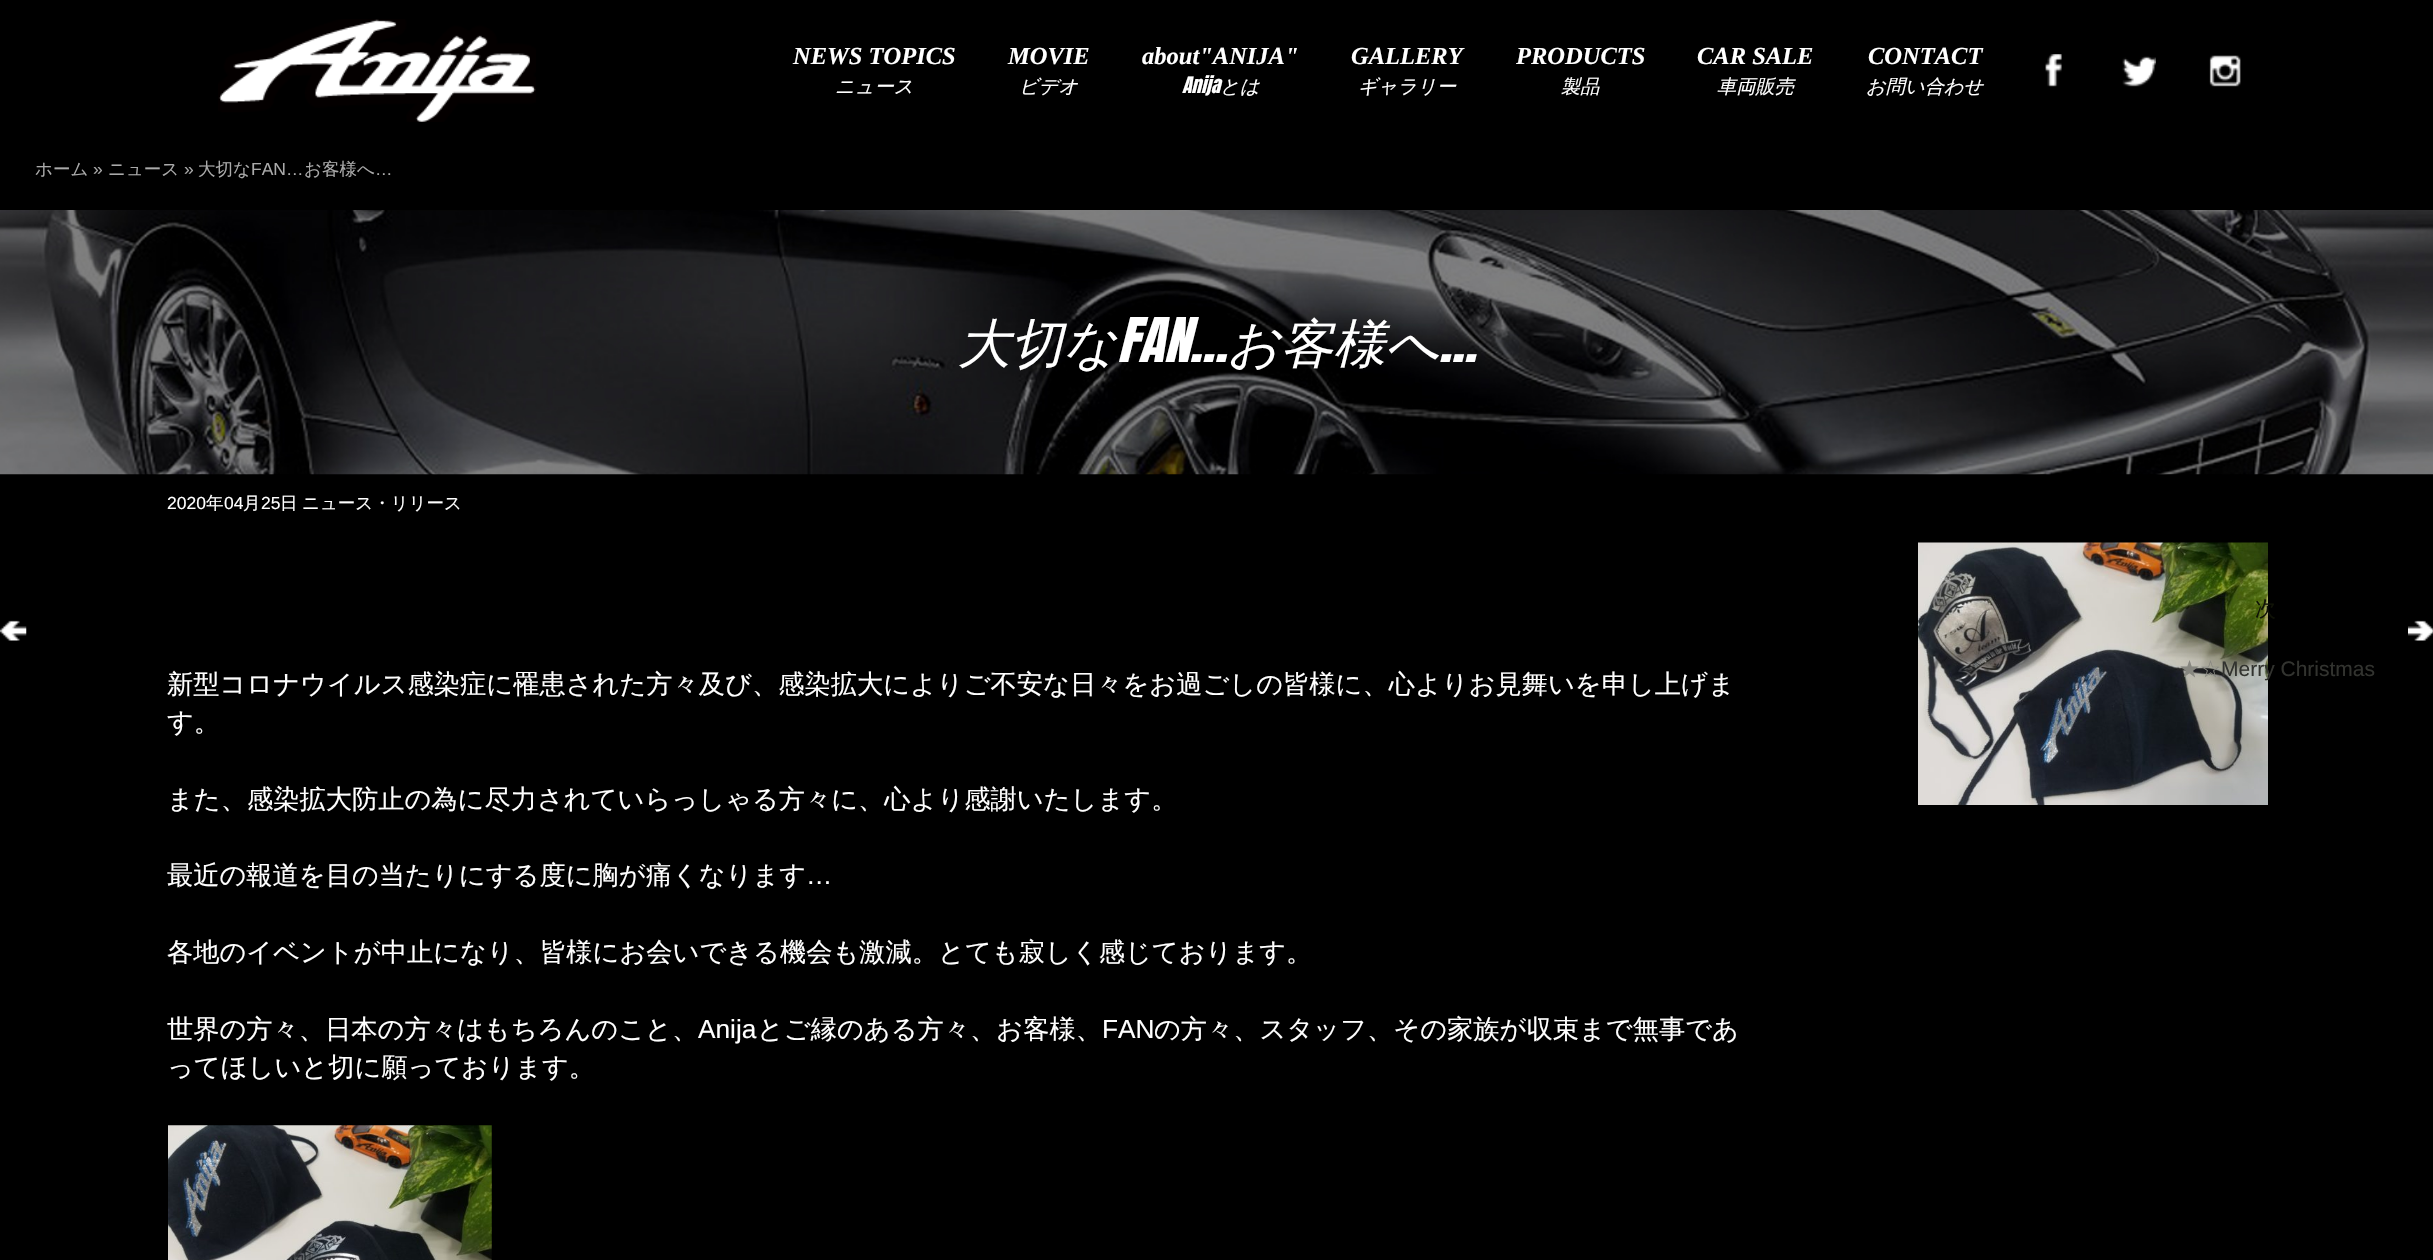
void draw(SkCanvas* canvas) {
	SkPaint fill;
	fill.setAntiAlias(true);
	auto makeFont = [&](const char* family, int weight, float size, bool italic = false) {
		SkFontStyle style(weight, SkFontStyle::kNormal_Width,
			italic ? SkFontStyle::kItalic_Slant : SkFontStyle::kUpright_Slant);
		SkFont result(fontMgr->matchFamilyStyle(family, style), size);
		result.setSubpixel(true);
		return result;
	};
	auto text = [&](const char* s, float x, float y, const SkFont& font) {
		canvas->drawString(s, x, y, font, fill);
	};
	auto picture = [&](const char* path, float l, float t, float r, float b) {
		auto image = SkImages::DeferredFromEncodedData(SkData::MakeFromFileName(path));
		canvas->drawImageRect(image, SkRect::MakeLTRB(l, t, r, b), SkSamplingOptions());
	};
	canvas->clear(0xFF000000);
	picture("image0.png", 218, 19, 536, 122);
	picture("image1.png", 2045, 54, 2062, 87);
	picture("image2.png", 2122, 56, 2156, 87);
	picture("image3.png", 2209, 55, 2241, 87);
	picture("image4.png", 0, 210, 2433, 475);
	picture("image5.png", 0, 620, 27, 641);
	picture("image6.png", 1918, 542, 2268, 805);
	picture("image7.png", 168, 1125, 492, 1260);
	picture("image8.png", 2408, 620, 2433, 641);
	auto font1 = makeFont("Liberation Serif", 700, 24.5f, true);
	fill.setColor(0xFFFFFFFF);
	text("NEWS TOPICS", 793, 64, font1);
	auto font2 = makeFont("WenQuanYi Zen Hei", 500, 19.25f, true);
	text("ニュース", 835, 93, font2);
	text("MOVIE", 1008, 64, font1);
	text("ビデオ", 1019, 93, font2);
	text("about\"ANIJA\"", 1142, 64, font1);
	auto font3 = makeFont("Anton", 400, 19.25f, true);
	text("Anija", 1182, 93, font3);
	text("とは", 1220, 93, font2);
	text("GALLERY", 1351, 64, font1);
	text("ギャラリー", 1358, 93, font2);
	text("PRODUCTS", 1516, 64, font1);
	text("製品", 1561, 93, font2);
	text("CAR SALE", 1697, 64, font1);
	text("車両販売", 1717, 93, font2);
	text("CONTACT", 1868, 64, font1);
	text("お問い合わせ", 1866, 93, font2);
	auto font4 = makeFont("WenQuanYi Zen Hei", 500, 17.5f);
	fill.setColor(0xFFAAAAAA);
	text("ホーム", 35, 175, font4);
	auto font5 = makeFont("Liberation Sans", 400, 17.5f);
	text("»", 93, 175, font5);
	text("ニュース", 108, 175, font4);
	text("»", 184, 175, font5);
	text("大切な", 198, 175, font4);
	text("FAN…", 251, 175, font5);
	text("お客様へ", 304, 175, font4);
	text("…", 375, 175, font5);
	auto font6 = makeFont("WenQuanYi Zen Hei", 500, 52.5f, true);
	fill.setColor(0xFFFFFFFF);
	text("大切な", 958, 362, font6);
	auto font7 = makeFont("Anton", 400, 52.5f, true);
	text("FAN…", 1117, 362, font7);
	text("お客様へ", 1227, 362, font6);
	text("…", 1439, 362, font7);
	text("2020", 167, 509, font5);
	text("年", 206, 509, font4);
	text("04", 224, 509, font5);
	text("月", 243, 509, font4);
	text("25", 261, 509, font5);
	text("日", 280, 509, font4);
	text("ニュース・リリース", 302, 509, font4);
	auto font8 = makeFont("WenQuanYi Zen Hei", 500, 26.25f);
	text("新型コロナウイルス感染症に罹患された方々及び、感染拡大によりご不安な日々をお過ごしの皆様に、心よりお見舞いを申し上げま", 167, 693, font8);
	text("す。", 167, 731, font8);
	text("また、感染拡大防止の為に尽力されていらっしゃる方々に、心より感謝いたします。", 167, 808, font8);
	text("最近の報道を目の当たりにする度に胸が痛くなります", 167, 884, font8);
	auto font9 = makeFont("Liberation Sans", 400, 26.25f);
	text("…", 806, 884, font9);
	text("各地のイベントが中止になり、皆様にお会いできる機会も激減。とても寂しく感じております。", 167, 961, font8);
	text("世界の方々、日本の方々はもちろんのこと、", 167, 1038, font8);
	text("Anija", 698, 1038, font9);
	text("とご縁のある方々、お客様、", 757, 1038, font8);
	text("FAN", 1102, 1038, font9);
	text("の方々、スタッフ、その家族が収束まで無事であ", 1154, 1038, font8);
	text("ってほしいと切に願っております。", 167, 1076, font8);
	auto font10 = makeFont("WenQuanYi Zen Hei", 500, 21);
	fill.setColor(0xFF0F1206);
	text("次", 2255, 616, font10);
	fill.setColor(0xFF878780);
	text("★☆", 2179, 676, font10);
	auto font11 = makeFont("Liberation Sans", 400, 21);
	fill.setColor(0xFF32332F);
	text("Merry Christmas", 2221, 676, font11);
}
